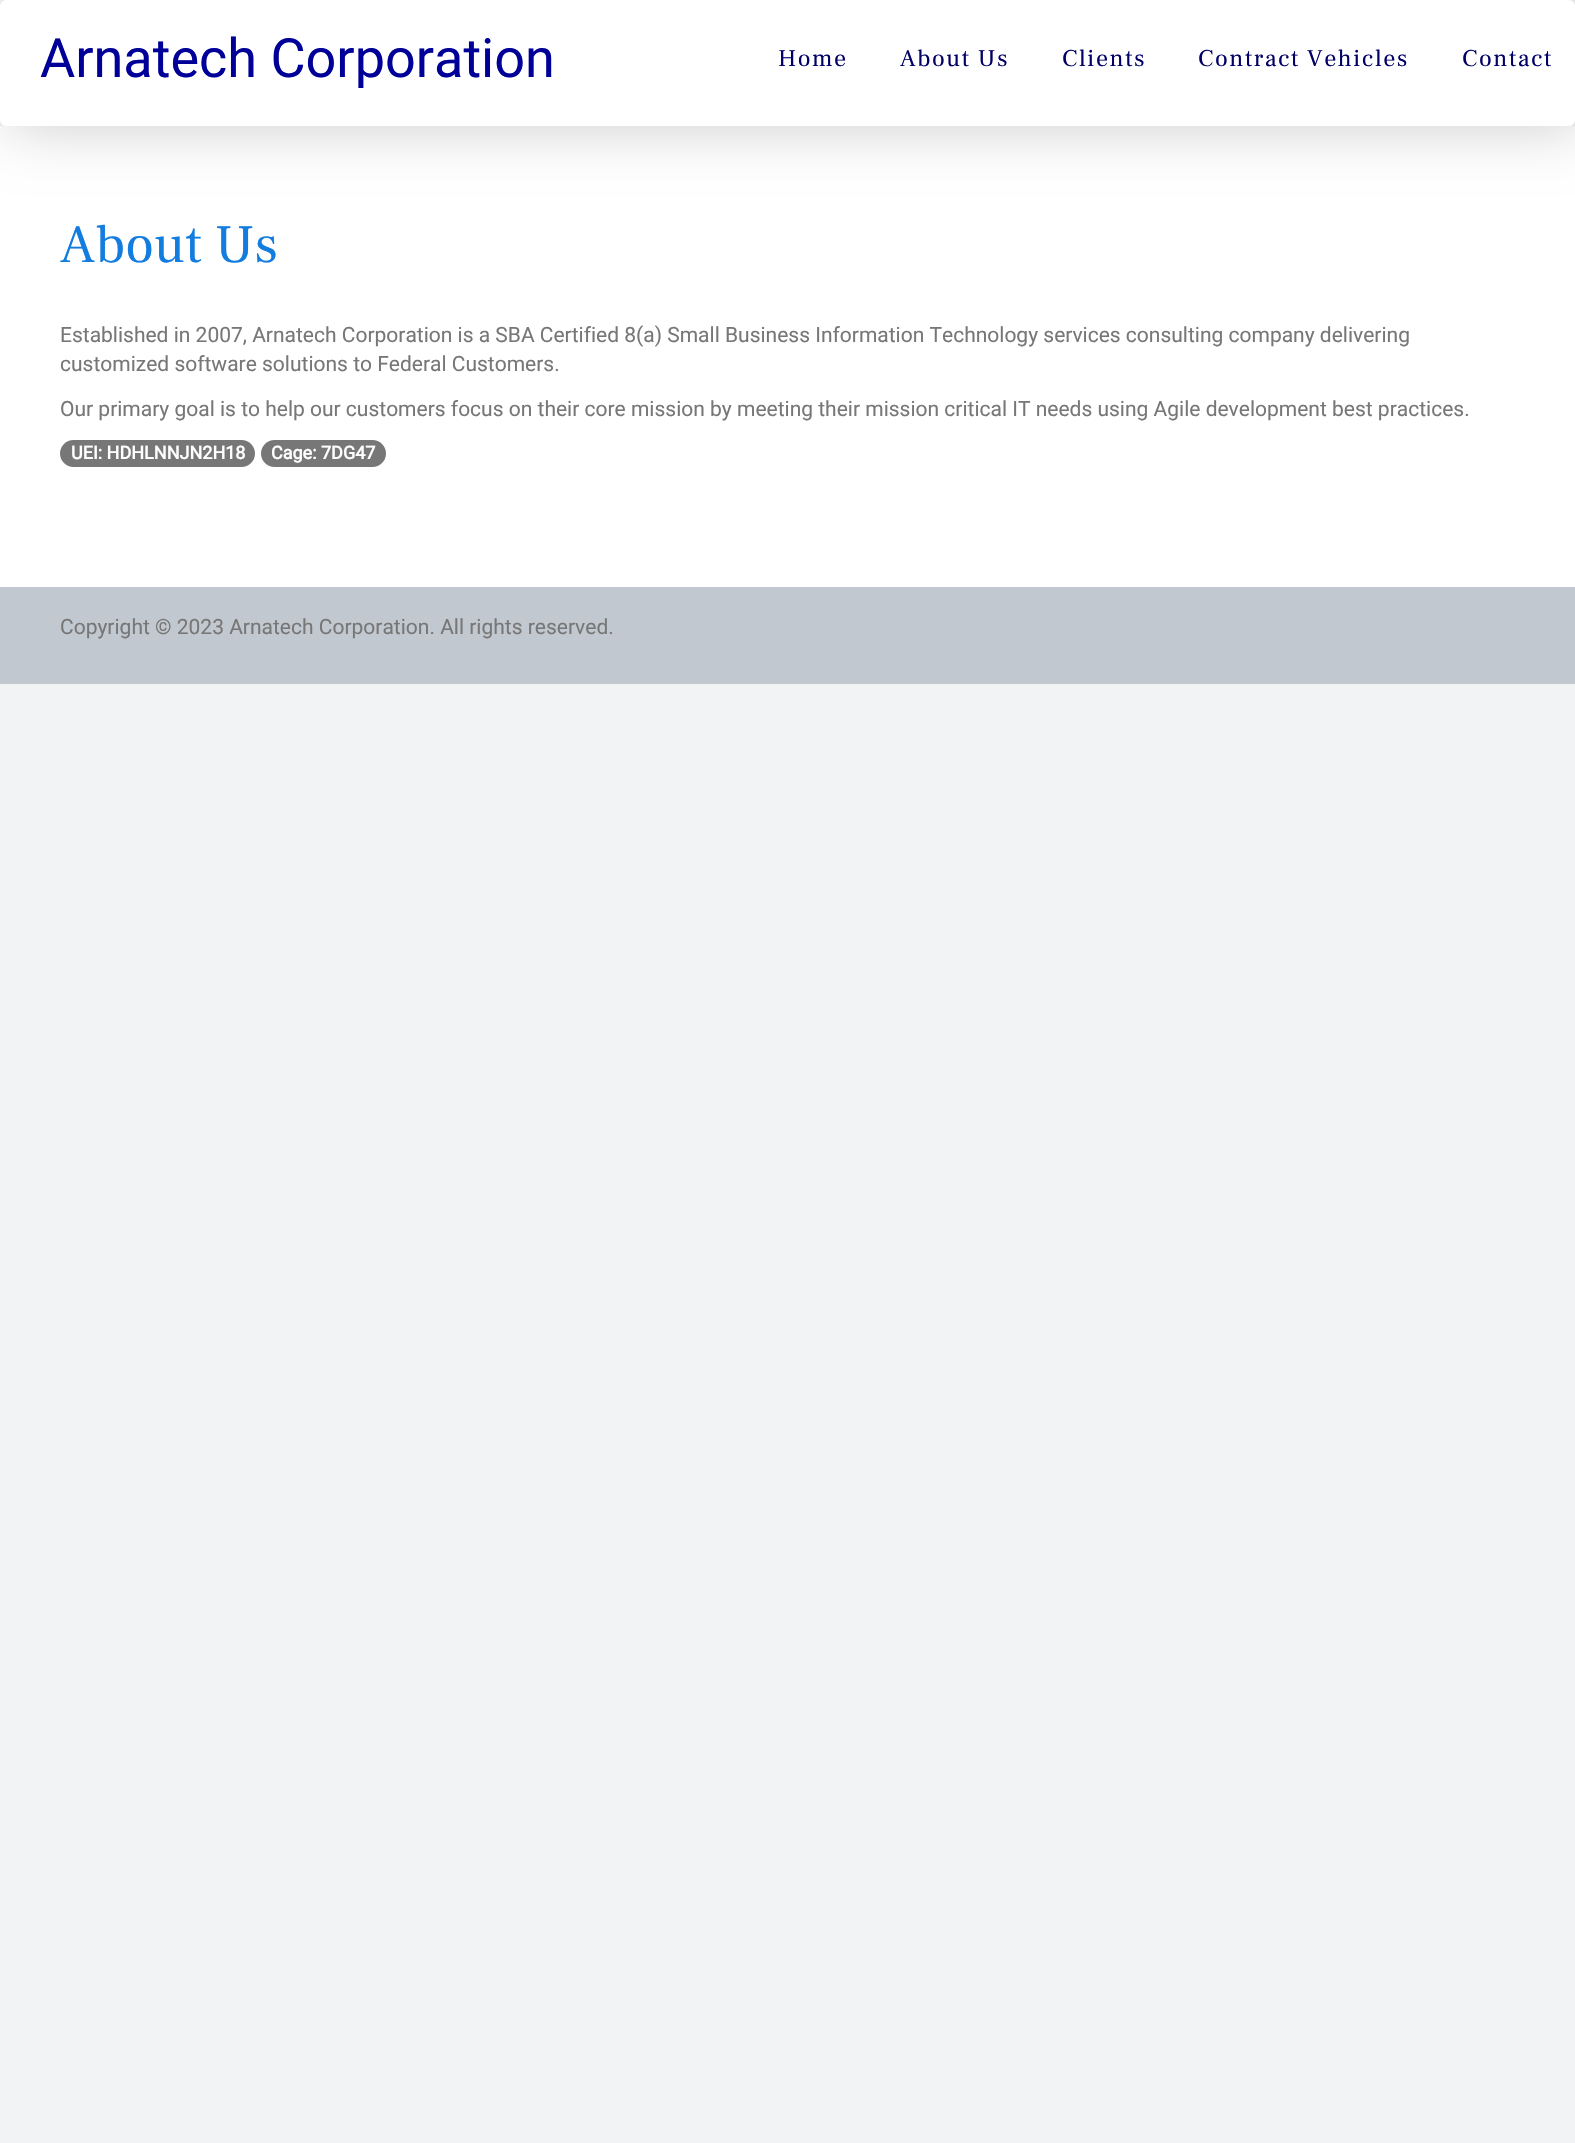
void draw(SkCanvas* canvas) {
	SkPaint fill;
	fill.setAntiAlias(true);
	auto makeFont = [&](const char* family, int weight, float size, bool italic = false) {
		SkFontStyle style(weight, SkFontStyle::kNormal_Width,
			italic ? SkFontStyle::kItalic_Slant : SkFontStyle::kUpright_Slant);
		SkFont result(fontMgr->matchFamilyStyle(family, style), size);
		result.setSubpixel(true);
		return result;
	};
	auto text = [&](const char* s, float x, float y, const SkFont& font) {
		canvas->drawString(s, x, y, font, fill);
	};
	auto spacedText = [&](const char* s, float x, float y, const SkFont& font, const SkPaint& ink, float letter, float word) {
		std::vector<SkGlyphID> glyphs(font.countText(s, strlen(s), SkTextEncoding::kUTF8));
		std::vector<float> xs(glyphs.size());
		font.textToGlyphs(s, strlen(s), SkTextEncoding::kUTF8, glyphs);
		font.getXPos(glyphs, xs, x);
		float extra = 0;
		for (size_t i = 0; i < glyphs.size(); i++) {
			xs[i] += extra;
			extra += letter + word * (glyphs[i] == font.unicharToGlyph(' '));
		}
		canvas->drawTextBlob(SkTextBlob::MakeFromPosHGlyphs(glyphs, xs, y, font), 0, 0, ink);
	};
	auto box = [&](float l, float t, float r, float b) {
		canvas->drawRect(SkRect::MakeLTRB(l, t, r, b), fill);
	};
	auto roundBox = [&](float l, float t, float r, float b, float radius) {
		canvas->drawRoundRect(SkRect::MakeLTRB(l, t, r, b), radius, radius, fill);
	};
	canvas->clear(0xFFF2F3F4);
	fill.setColor(0xFFFFFFFF);
	box(0, 126, 1575, 587);
	fill.setColor(0x33000000);
	fill.setMaskFilter(SkMaskFilter::MakeBlur(kNormal_SkBlurStyle, 30));
	canvas->drawRoundRect(SkRect::MakeLTRB(8, 0, 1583, 126), 6, 6, fill);
	fill.setMaskFilter(nullptr);
	fill.setColor(0xFFFFFFFF);
	roundBox(0, 0, 1575, 126, 6);
	fill.setColor(0xFF777777);
	roundBox(60, 440, 255, 467, 13.5f);
	roundBox(261, 440, 386, 467, 13.5f);
	fill.setColor(0xFFC2C8CF);
	box(0, 587, 1575, 684);
	auto font1 = makeFont("Roboto", 400, 54);
	fill.setColor(0xFF000099);
	text("Arnatech Corporation", 40, 77, font1);
	auto font2 = makeFont("Frank Ruhl Libre", 400, 24);
	fill.setColor(0xFF010066);
	spacedText("Home", 778, 66, font2, fill, 1.5f, 0);
	spacedText("About Us", 900, 66, font2, fill, 1.5f, 0);
	spacedText("Clients", 1062, 66, font2, fill, 1.5f, 0);
	spacedText("Contract Vehicles", 1198, 66, font2, fill, 1.5f, 0);
	spacedText("Contact", 1462, 66, font2, fill, 1.5f, 0);
	auto font3 = makeFont("Frank Ruhl Libre", 400, 54);
	fill.setColor(0xFF127CDF);
	text("About Us", 60, 262, font3);
	auto font4 = makeFont("Roboto", 400, 21);
	fill.setColor(0xFF777777);
	text("Established in 2007, Arnatech Corporation is a SBA Certified 8(a) Small Business Information Technology services consulting company delivering", 60, 342, font4);
	text("customized software solutions to Federal Customers.", 60, 371, font4);
	text("Our primary goal is to help our customers focus on their core mission by meeting their mission critical IT needs using Agile development best practices.", 60, 416, font4);
	auto font5 = makeFont("Roboto", 700, 18);
	fill.setColor(0xFFFFFFFF);
	text("UEI: HDHLNNJN2H18", 71, 459, font5);
	text("Cage: 7DG47", 271, 459, font5);
	fill.setColor(0xFF777777);
	text("Copyright © 2023 Arnatech Corporation. All rights reserved.", 60, 634, font4);
}
